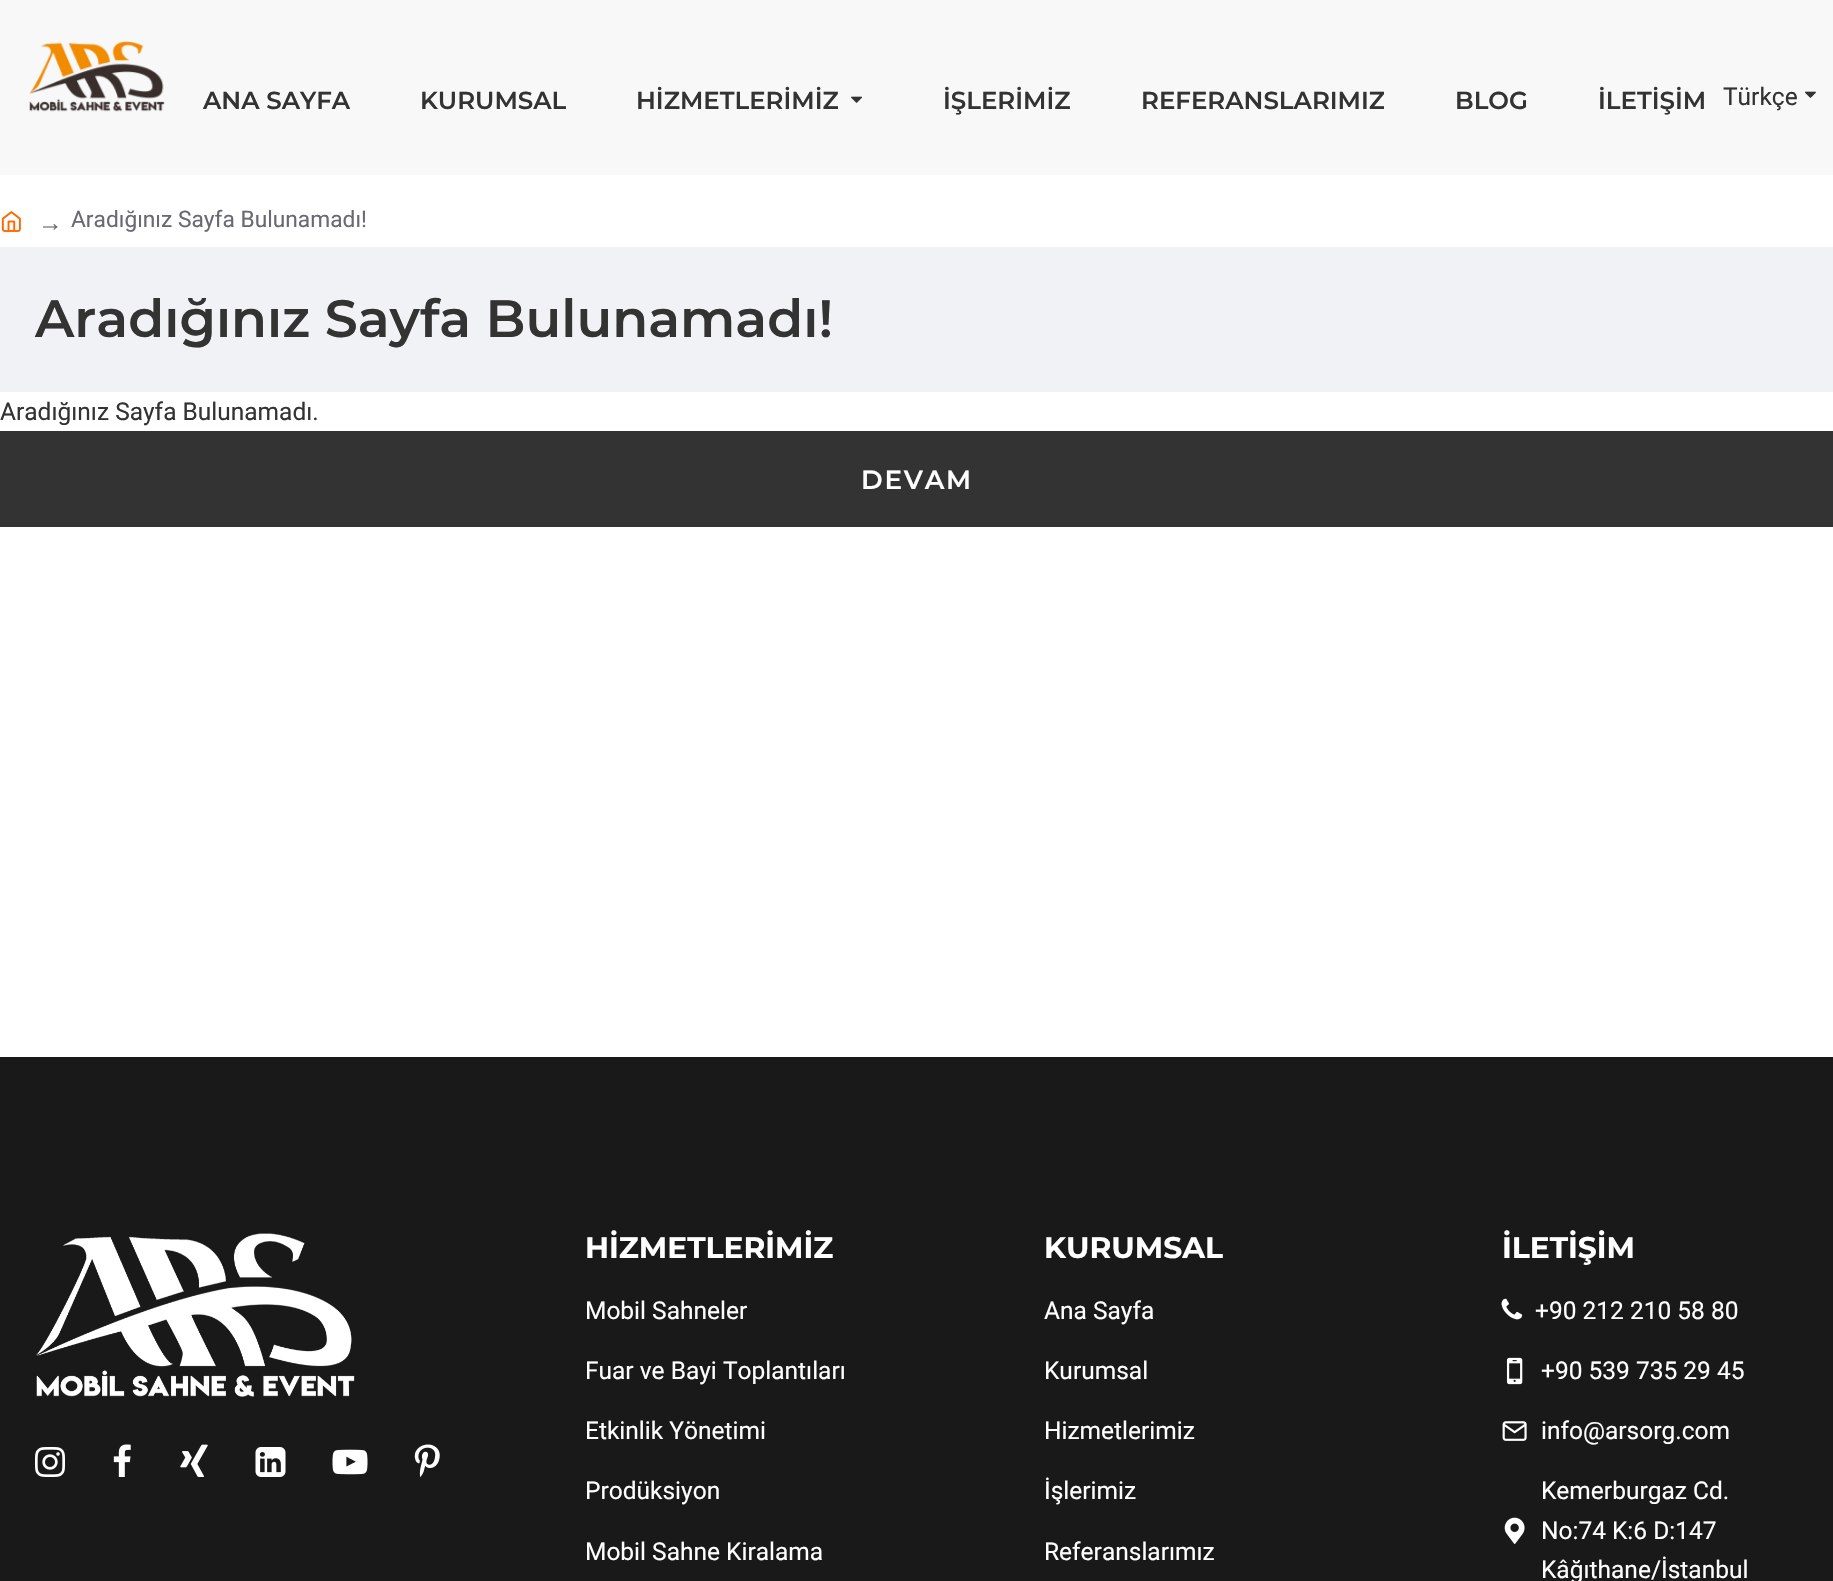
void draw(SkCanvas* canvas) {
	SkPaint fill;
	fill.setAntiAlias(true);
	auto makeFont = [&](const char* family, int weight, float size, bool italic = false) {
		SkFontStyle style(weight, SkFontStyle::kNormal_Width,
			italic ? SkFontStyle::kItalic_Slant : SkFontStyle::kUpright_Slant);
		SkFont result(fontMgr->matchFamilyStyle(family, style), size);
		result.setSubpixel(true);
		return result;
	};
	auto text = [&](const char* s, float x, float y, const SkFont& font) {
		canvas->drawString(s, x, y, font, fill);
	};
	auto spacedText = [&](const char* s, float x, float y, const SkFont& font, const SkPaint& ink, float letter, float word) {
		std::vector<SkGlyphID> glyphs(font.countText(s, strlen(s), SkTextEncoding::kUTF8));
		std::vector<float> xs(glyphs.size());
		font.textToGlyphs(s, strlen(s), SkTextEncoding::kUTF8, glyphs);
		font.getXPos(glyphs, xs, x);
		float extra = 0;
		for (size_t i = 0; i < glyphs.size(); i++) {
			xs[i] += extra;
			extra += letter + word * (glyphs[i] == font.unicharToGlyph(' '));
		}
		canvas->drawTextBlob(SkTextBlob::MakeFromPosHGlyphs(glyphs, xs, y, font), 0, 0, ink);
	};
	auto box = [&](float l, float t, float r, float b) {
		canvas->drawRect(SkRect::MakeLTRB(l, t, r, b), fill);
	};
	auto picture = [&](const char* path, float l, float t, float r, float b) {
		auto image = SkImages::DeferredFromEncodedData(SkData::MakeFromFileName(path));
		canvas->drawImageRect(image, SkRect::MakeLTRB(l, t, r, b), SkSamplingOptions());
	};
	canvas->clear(0xFFFFFFFF);
	fill.setColor(0xFFF8F8F8);
	box(0, 0, 1833, 175);
	picture("image0.png", 29, 41, 165, 112);
	picture("image1.png", 851, 96, 862, 103);
	picture("image2.png", 1805, 91, 1816, 98);
	picture("image3.png", 1, 211, 21, 232);
	fill.setColor(0xFFF0F2F5);
	box(0, 247, 1833, 392);
	fill.setColor(0xFF333333);
	box(0, 431, 1833, 527);
	fill.setColor(0xFF191919);
	box(0, 1057, 1833, 1581);
	picture("image4.png", 36, 1233, 355, 1397);
	picture("image5.png", 35, 1447, 65, 1477);
	picture("image6.png", 113, 1444, 131, 1477);
	picture("image7.png", 180, 1444, 208, 1477);
	picture("image8.png", 255, 1447, 286, 1477);
	picture("image9.png", 332, 1449, 368, 1475);
	picture("image10.png", 414, 1444, 440, 1477);
	picture("image11.png", 1501, 1298, 1523, 1320);
	picture("image12.png", 1506, 1357, 1523, 1385);
	picture("image13.png", 1502, 1421, 1527, 1441);
	picture("image14.png", 1504, 1517, 1525, 1544);
	auto font1 = makeFont("Montserrat", 600, 24.5f);
	fill.setColor(0xFF333333);
	text("ANA SAYFA", 203, 109, font1);
	text("KURUMSAL", 420, 109, font1);
	canvas->save();
	canvas->clipRect(SkRect::MakeLTRB(637, 81, 838, 121));
	text("HİZMETLERİMİZ", 636, 109, font1);
	canvas->restore();
	text("İŞLERİMİZ", 943, 109, font1);
	canvas->save();
	canvas->clipRect(SkRect::MakeLTRB(1141, 81, 1384, 121));
	text("REFERANSLARIMIZ", 1141, 109, font1);
	canvas->restore();
	text("BLOG", 1455, 109, font1);
	text("İLETİŞİM", 1598, 109, font1);
	auto font2 = makeFont("Roboto", 400, 24.5f);
	text("Türkçe", 1723, 105, font2);
	auto font3 = makeFont("Liberation Serif", 400, 24.5f);
	fill.setColor(0xFF696973);
	text("→", 38, 231, font3);
	auto font4 = makeFont("Roboto", 400, 22.75f);
	text("Aradığınız Sayfa Bulunamadı!", 71, 227, font4);
	auto font5 = makeFont("Montserrat", 600, 52.5f);
	fill.setColor(0xFF333333);
	text("Aradığınız Sayfa Bulunamadı!", 35, 337, font5);
	text("Aradığınız Sayfa Bulunamadı.", 0, 420, font2);
	auto font6 = makeFont("Montserrat", 600, 26.25f);
	fill.setColor(0xFFFFFFFF);
	spacedText("DEVAM", 861, 489, font6, fill, 1.75f, 0);
	auto font7 = makeFont("Montserrat", 700, 29.75f);
	text("HİZMETLERİMİZ", 585, 1258, font7);
	text("Mobil Sahneler", 585, 1319, font2);
	text("Fuar ve Bayi Toplantıları", 585, 1379, font2);
	text("Etkinlik Yönetimi", 585, 1439, font2);
	text("Prodüksiyon", 585, 1499, font2);
	text("Mobil Sahne Kiralama", 585, 1560, font2);
	text("KURUMSAL", 1044, 1258, font7);
	text("Ana Sayfa", 1044, 1319, font2);
	text("Kurumsal", 1044, 1379, font2);
	text("Hizmetlerimiz", 1044, 1439, font2);
	text("İşlerimiz", 1044, 1499, font2);
	text("Referanslarımız", 1044, 1560, font2);
	text("İLETİŞİM", 1502, 1258, font7);
	text("+90 212 210 58 80", 1535, 1319, font2);
	text("+90 539 735 29 45", 1541, 1379, font2);
	text("info@arsorg.com", 1541, 1439, font2);
	text("Kemerburgaz Cd.", 1541, 1499, font2);
	text("No:74 K:6 D:147", 1541, 1539, font2);
	text("Kâğıthane/İstanbul", 1541, 1578, font2);
}
